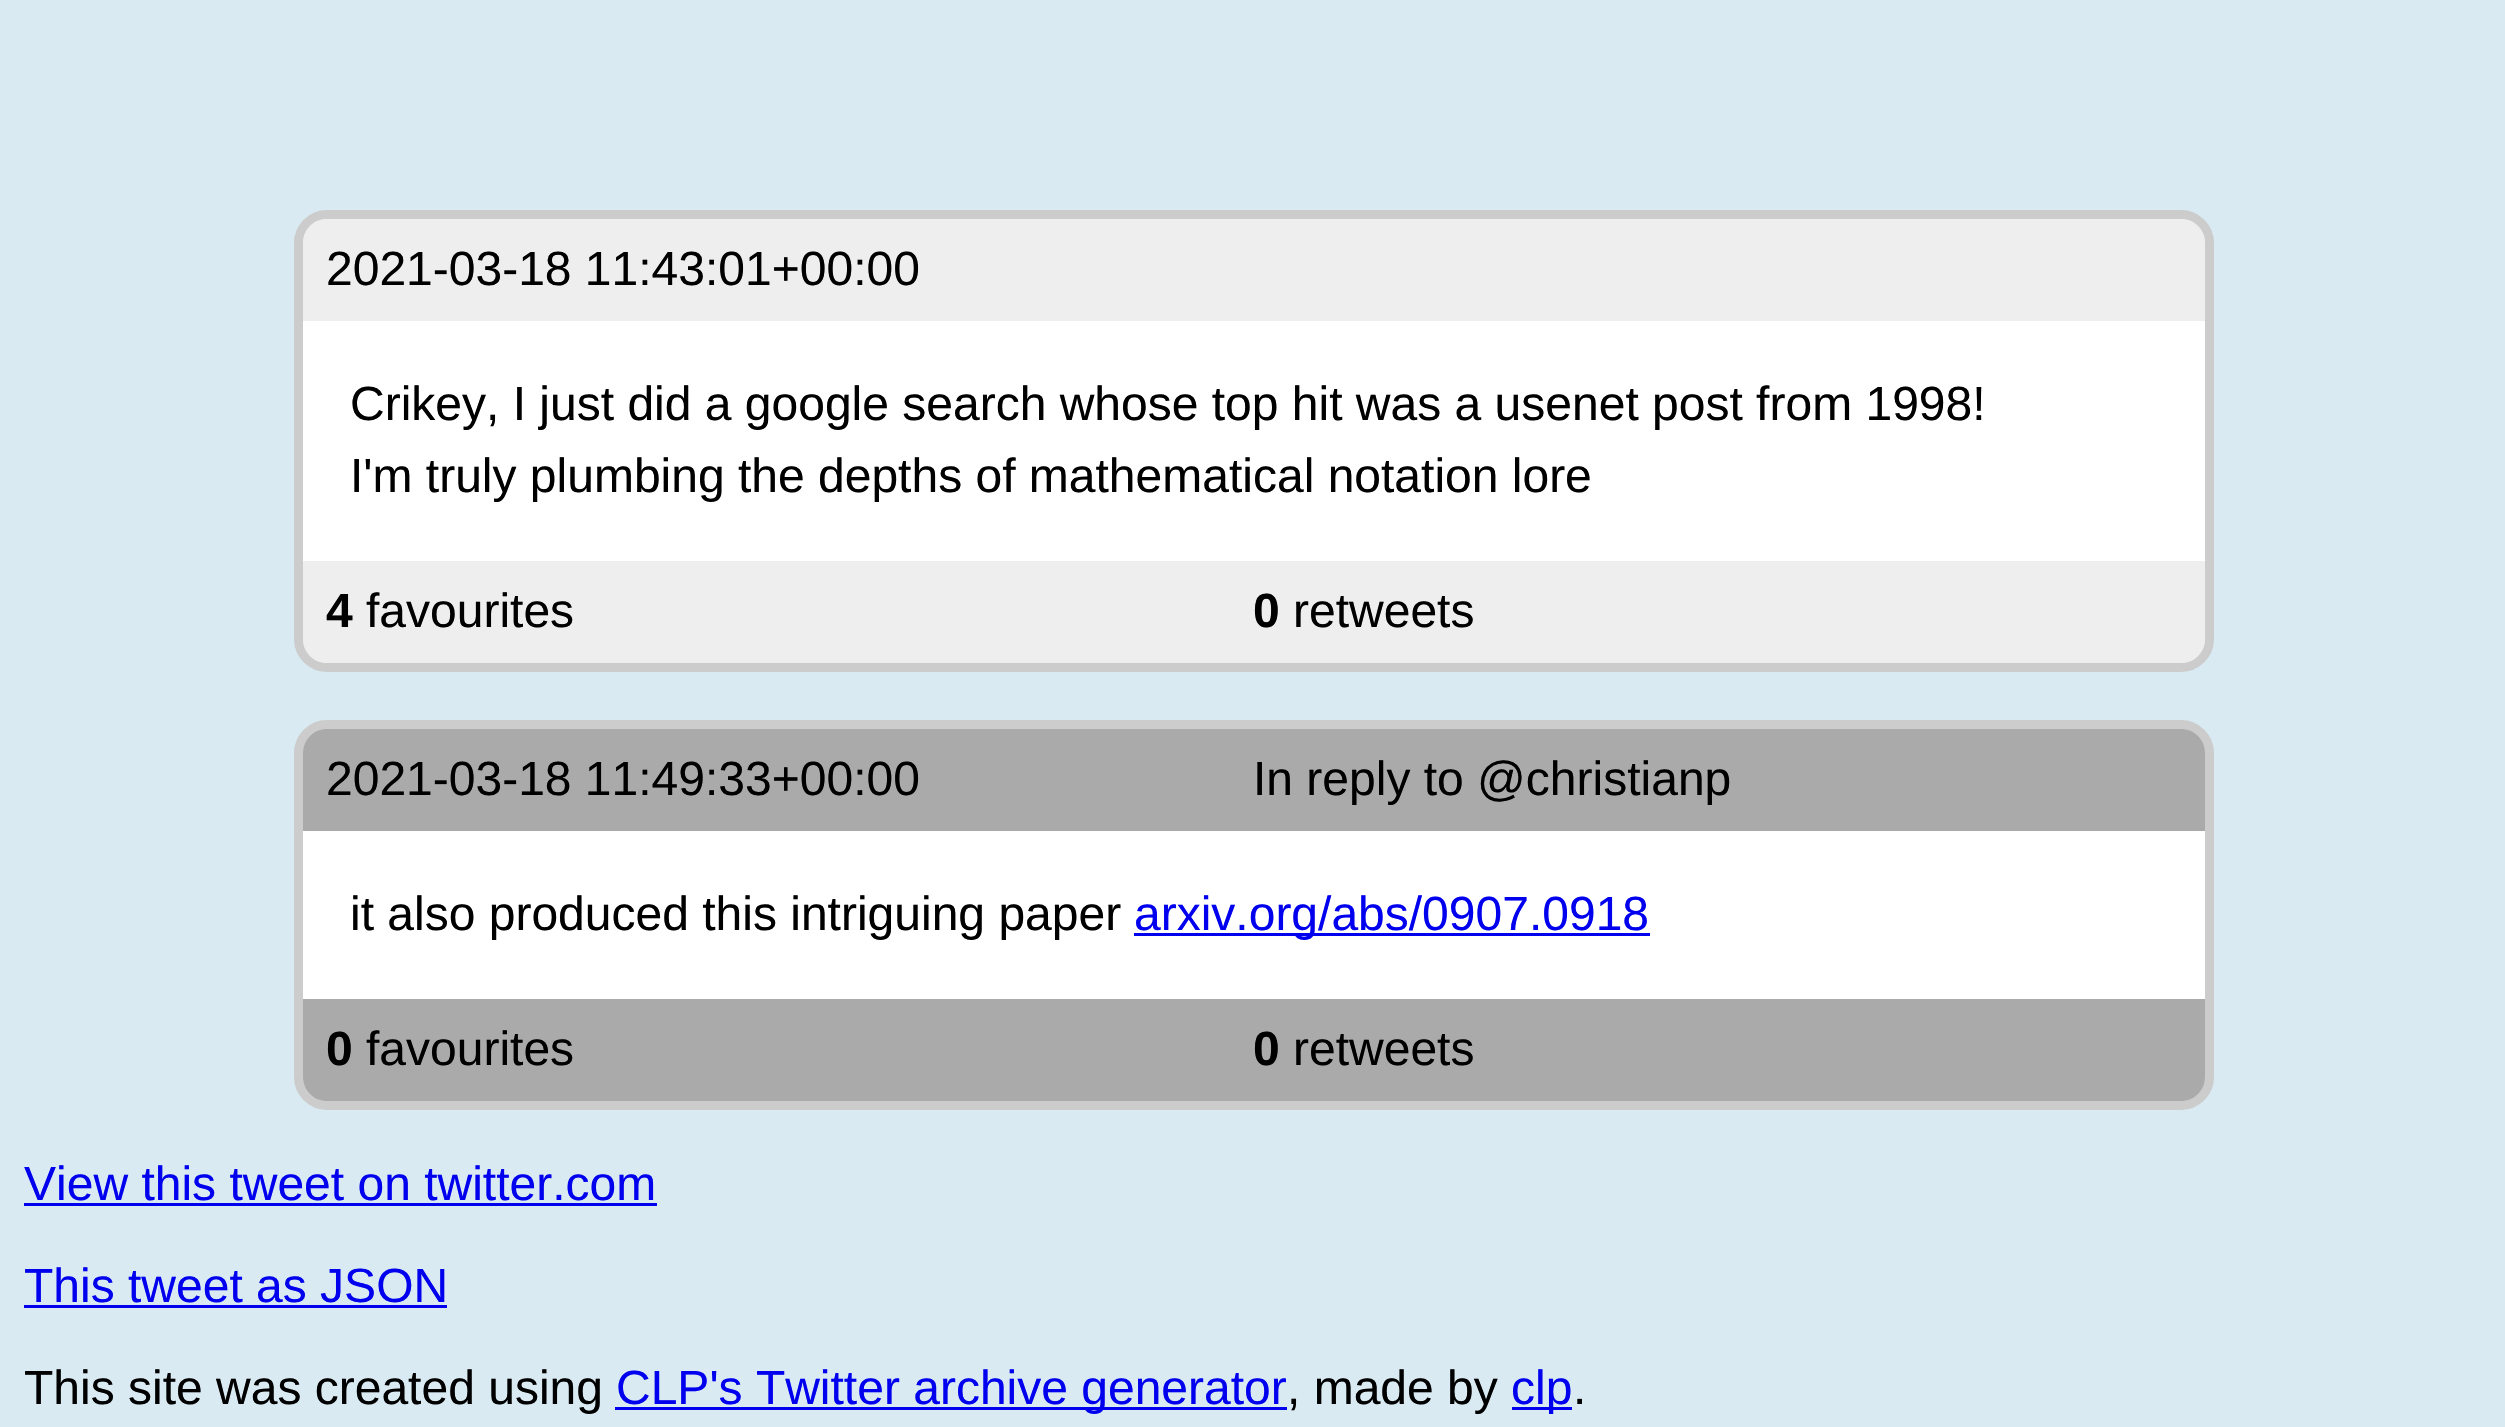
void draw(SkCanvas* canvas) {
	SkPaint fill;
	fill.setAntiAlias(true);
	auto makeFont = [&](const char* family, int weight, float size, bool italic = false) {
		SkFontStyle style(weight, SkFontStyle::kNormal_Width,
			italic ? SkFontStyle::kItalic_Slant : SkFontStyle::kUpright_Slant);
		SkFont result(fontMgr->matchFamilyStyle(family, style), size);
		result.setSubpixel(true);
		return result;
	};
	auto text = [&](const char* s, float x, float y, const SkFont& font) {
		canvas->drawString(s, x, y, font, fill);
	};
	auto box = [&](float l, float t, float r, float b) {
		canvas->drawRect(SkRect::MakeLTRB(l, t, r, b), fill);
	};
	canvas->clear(0xFFD9EAF2);
	fill.setStyle(SkPaint::kStroke_Style);
	fill.setStrokeWidth(9);
	fill.setColor(0xFFCCCCCC);
	canvas->drawRoundRect(SkRect::MakeLTRB(298.5f, 214.5f, 2209.5f, 667.5f), 28.5f, 28.5f, fill);
	fill.setStyle(SkPaint::kFill_Style);
	fill.setColor(0xFFEEEEEE);
	canvas->drawPath(SkPathBuilder().moveTo(327, 219).lineTo(2181, 219).cubicTo(2194.5f, 219, 2205, 229.5f, 2205, 243).lineTo(2205, 321).lineTo(303, 321).lineTo(303, 243).cubicTo(303, 229.5f, 313.5f, 219, 327, 219).close().detach(), fill);
	fill.setColor(0xFFFFFFFF);
	box(303, 321, 2205, 561);
	fill.setColor(0xFFEEEEEE);
	canvas->drawPath(SkPathBuilder().moveTo(303, 561).lineTo(2205, 561).lineTo(2205, 639).cubicTo(2205, 652.5f, 2194.5f, 663, 2181, 663).lineTo(327, 663).cubicTo(313.5f, 663, 303, 652.5f, 303, 639).close().detach(), fill);
	fill.setStyle(SkPaint::kStroke_Style);
	fill.setColor(0xFFCCCCCC);
	canvas->drawRoundRect(SkRect::MakeLTRB(298.5f, 724.5f, 2209.5f, 1105.5f), 28.5f, 28.5f, fill);
	fill.setStyle(SkPaint::kFill_Style);
	fill.setColor(0xFFAAAAAA);
	canvas->drawPath(SkPathBuilder().moveTo(327, 729).lineTo(2181, 729).cubicTo(2194.5f, 729, 2205, 739.5f, 2205, 753).lineTo(2205, 831).lineTo(303, 831).lineTo(303, 753).cubicTo(303, 739.5f, 313.5f, 729, 327, 729).close().detach(), fill);
	fill.setColor(0xFFFFFFFF);
	box(303, 831, 2205, 999);
	fill.setColor(0xFF0000EE);
	box(1134, 933, 1650, 936);
	fill.setColor(0xFFAAAAAA);
	canvas->drawPath(SkPathBuilder().moveTo(303, 999).lineTo(2205, 999).lineTo(2205, 1077).cubicTo(2205, 1090.5f, 2194.5f, 1101, 2181, 1101).lineTo(327, 1101).cubicTo(313.5f, 1101, 303, 1090.5f, 303, 1077).close().detach(), fill);
	fill.setColor(0xFF0000EE);
	box(24, 1203, 657, 1206);
	box(24, 1305, 447, 1308);
	box(615, 1407, 1287, 1410);
	box(1512, 1407, 1572, 1410);
	auto font1 = makeFont("Liberation Sans", 400, 48);
	fill.setColor(0xFF000000);
	text("2021-03-18 11:43:01+00:00", 326, 285, font1);
	text("Crikey, I just did a google search whose top hit was a usenet post from 1998!", 350, 420, font1);
	text("I'm truly plumbing the depths of mathematical notation lore", 350, 492, font1);
	auto font2 = makeFont("Liberation Sans", 700, 48);
	text("4", 326, 627, font2);
	text("favourites", 366, 627, font1);
	text("0", 1253, 627, font2);
	text("retweets", 1293, 627, font1);
	text("2021-03-18 11:49:33+00:00", 326, 795, font1);
	text("In reply to @christianp", 1253, 795, font1);
	text("it also produced this intriguing paper", 350, 930, font1);
	fill.setColor(0xFF0000EE);
	text("arxiv.org/abs/0907.0918", 1134, 930, font1);
	fill.setColor(0xFF000000);
	text("0", 326, 1065, font2);
	text("favourites", 366, 1065, font1);
	text("0", 1253, 1065, font2);
	text("retweets", 1293, 1065, font1);
	fill.setColor(0xFF0000EE);
	text("View this tweet on twitter.com", 24, 1200, font1);
	text("This tweet as JSON", 24, 1302, font1);
	fill.setColor(0xFF000000);
	text("This site was created using", 24, 1404, font1);
	fill.setColor(0xFF0000EE);
	text("CLP's Twitter archive generator", 616, 1404, font1);
	fill.setColor(0xFF000000);
	text(", made by", 1287, 1404, font1);
	fill.setColor(0xFF0000EE);
	text("clp", 1511, 1404, font1);
	fill.setColor(0xFF000000);
	text(".", 1573, 1404, font1);
}
